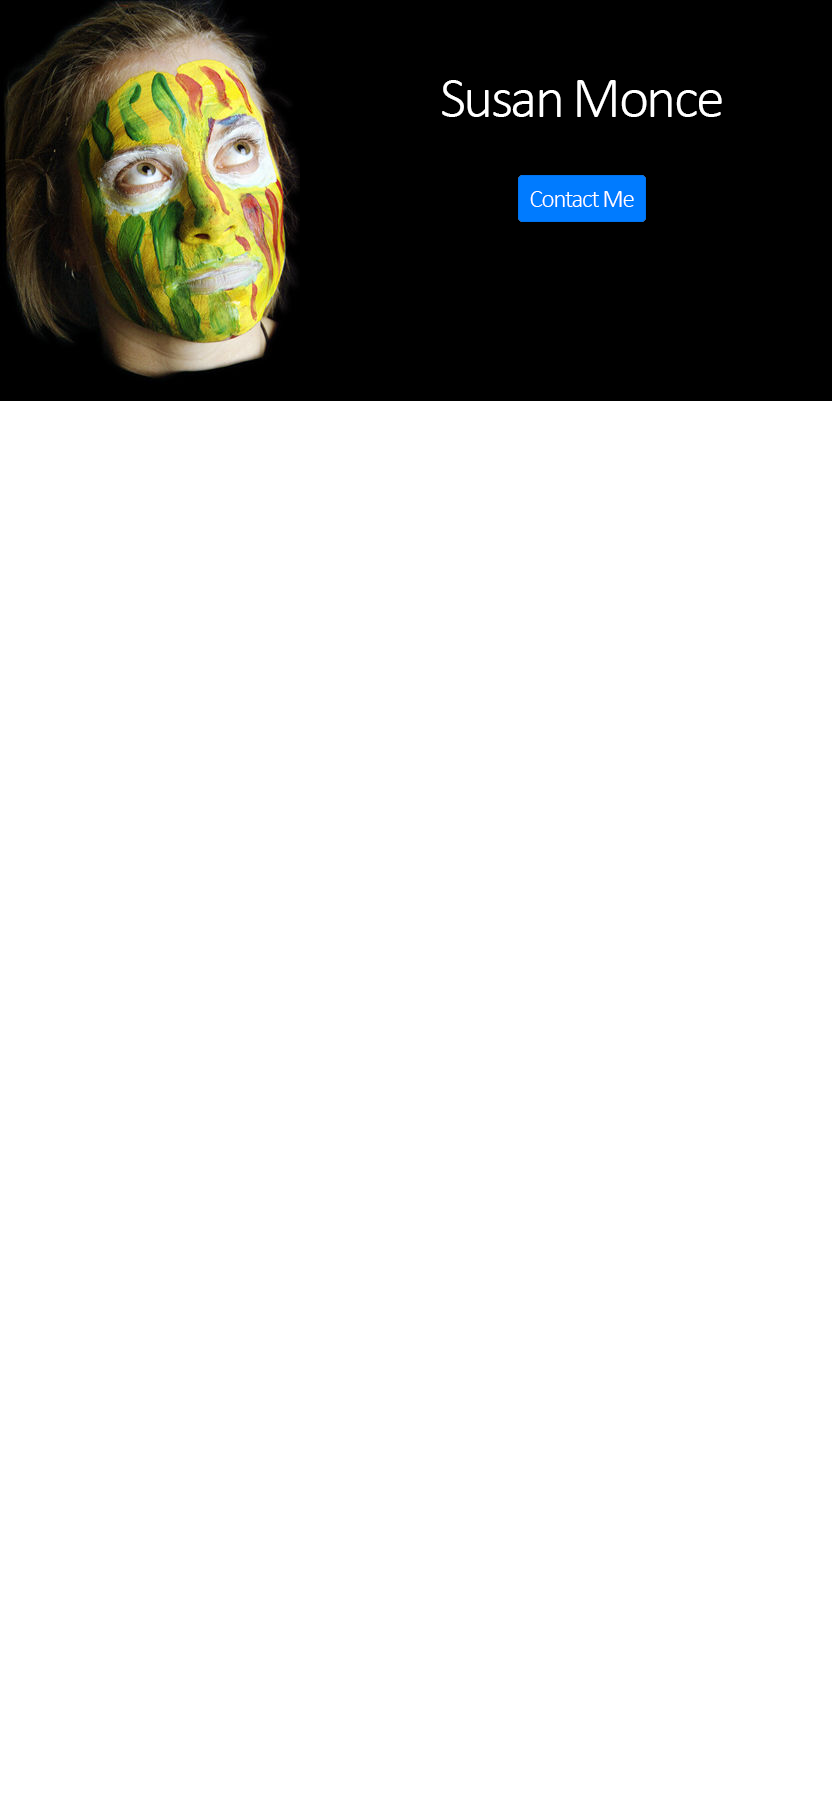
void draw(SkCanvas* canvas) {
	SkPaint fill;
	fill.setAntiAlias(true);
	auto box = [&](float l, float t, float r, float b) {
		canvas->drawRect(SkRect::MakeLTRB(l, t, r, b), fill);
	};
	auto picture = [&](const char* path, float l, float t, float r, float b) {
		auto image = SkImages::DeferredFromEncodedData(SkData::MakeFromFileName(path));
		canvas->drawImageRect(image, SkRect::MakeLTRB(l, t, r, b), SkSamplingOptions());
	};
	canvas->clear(0xFFFFFFFF);
	fill.setColor(0xFF000000);
	box(0, 0, 832, 401);
	picture("image0.png", 0, 0, 300, 384);
	picture("image1.png", 442, 80, 722, 222);
}
